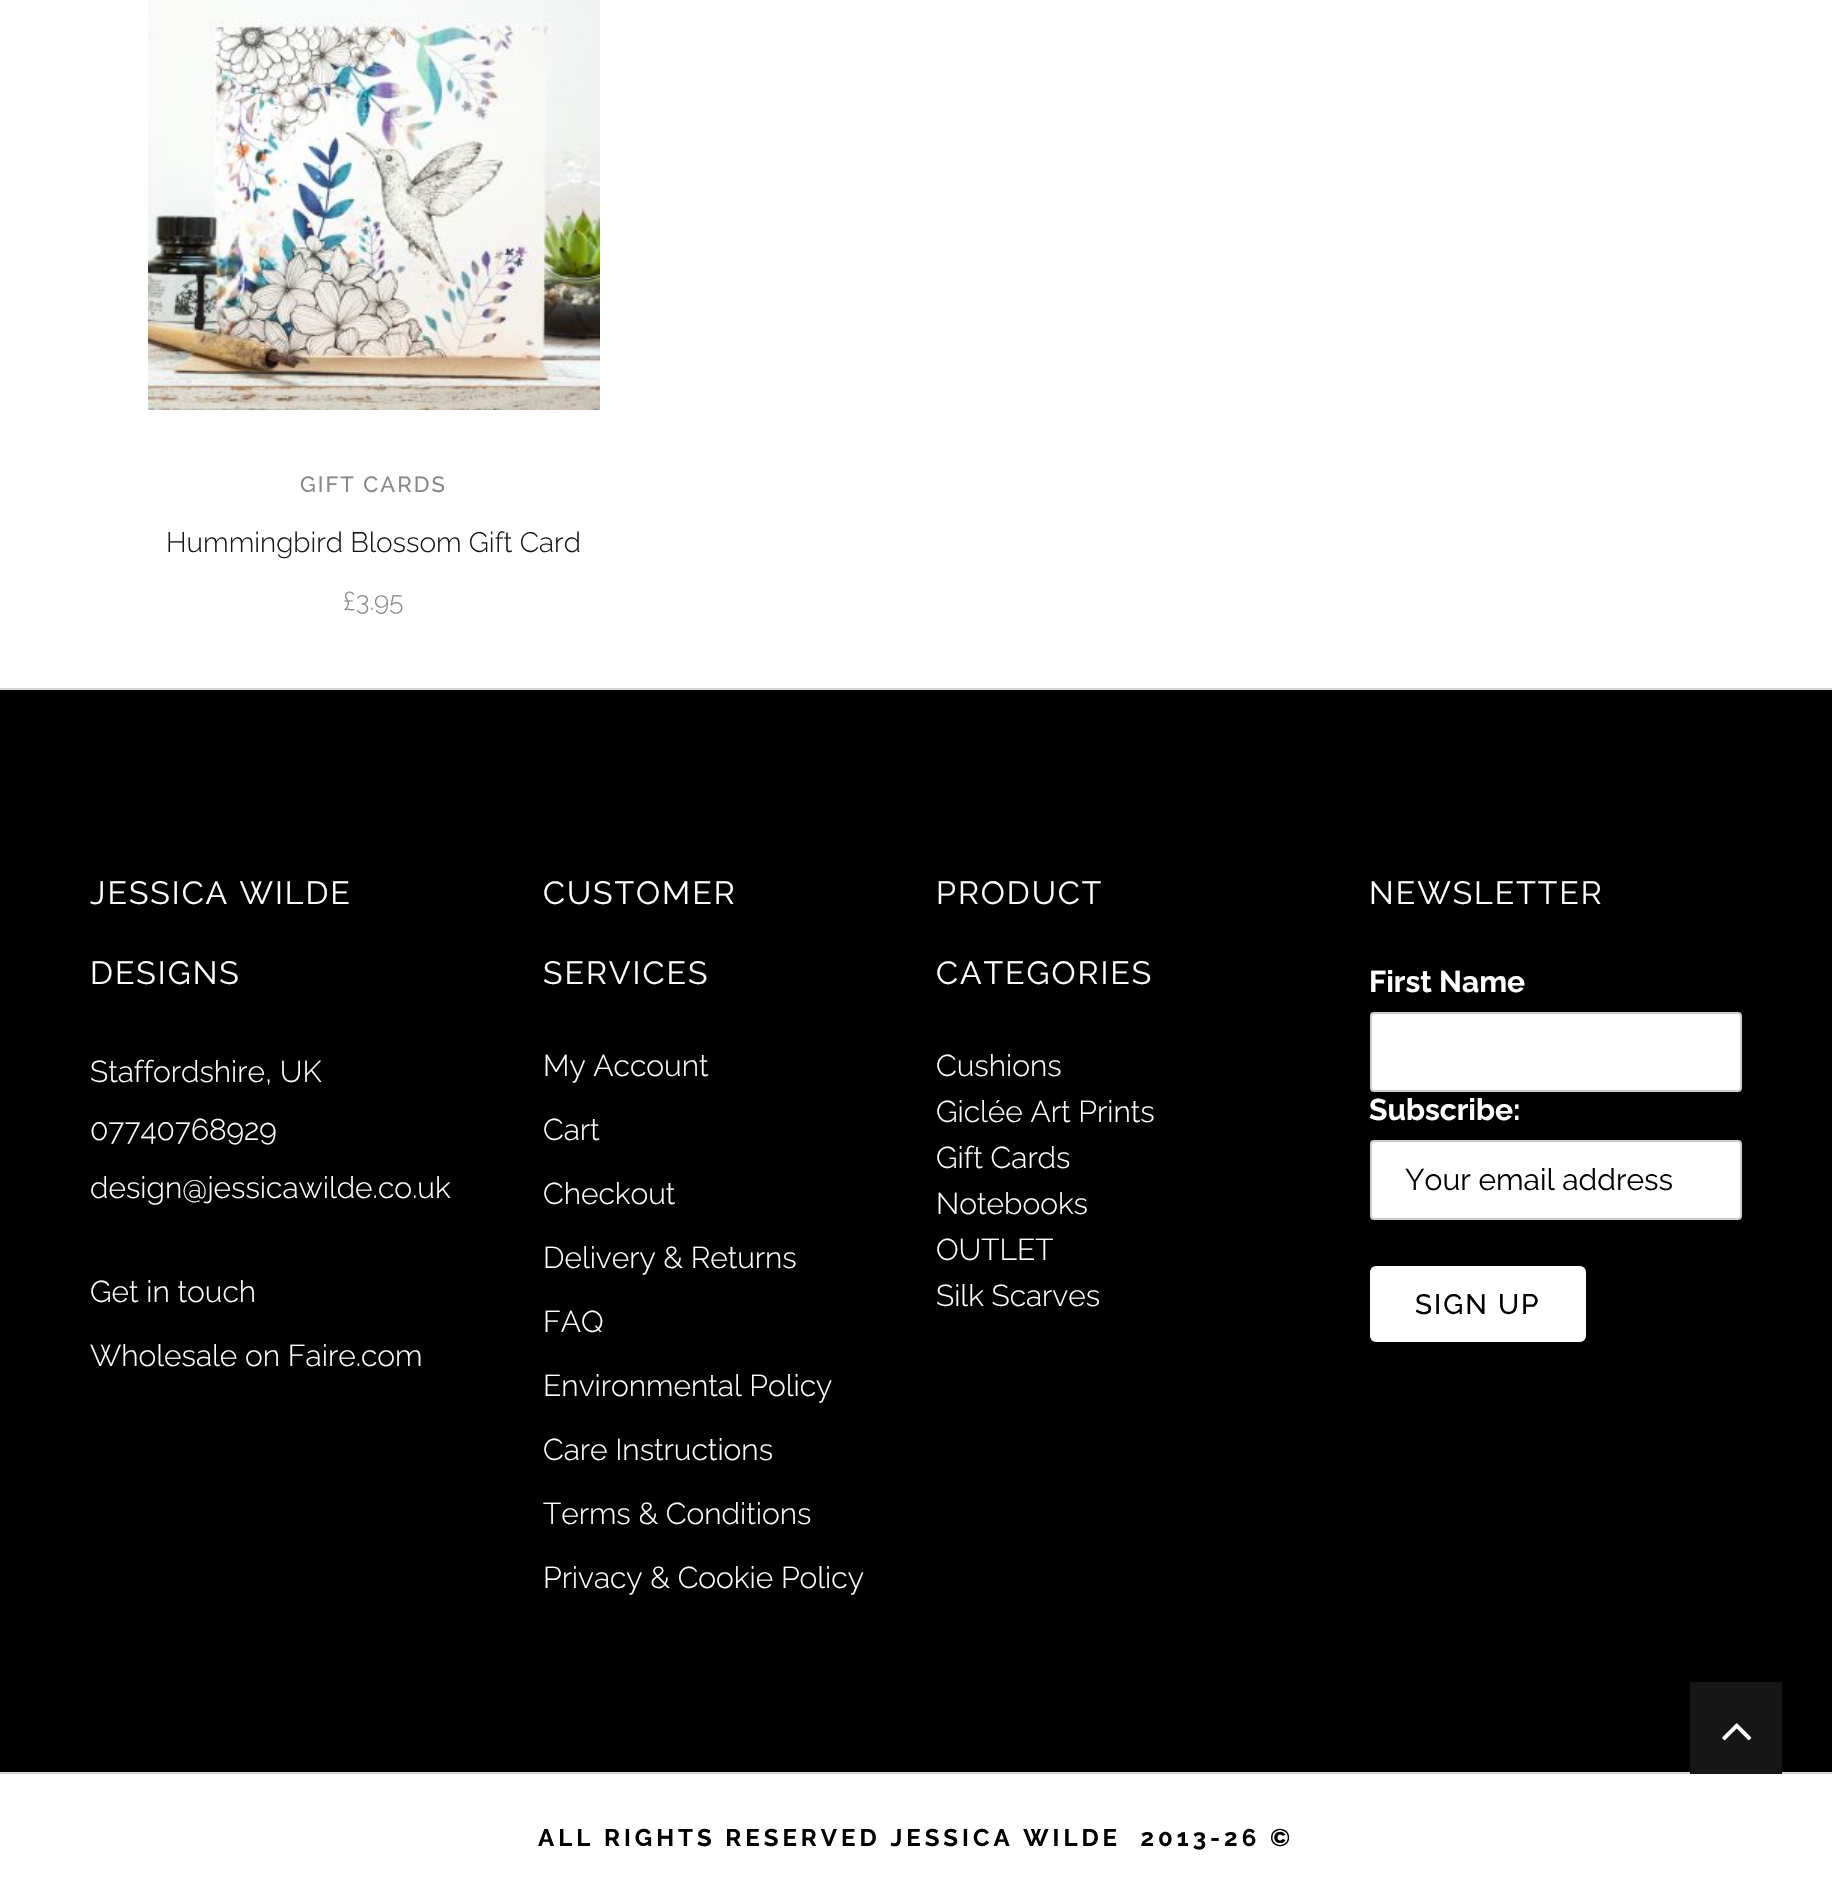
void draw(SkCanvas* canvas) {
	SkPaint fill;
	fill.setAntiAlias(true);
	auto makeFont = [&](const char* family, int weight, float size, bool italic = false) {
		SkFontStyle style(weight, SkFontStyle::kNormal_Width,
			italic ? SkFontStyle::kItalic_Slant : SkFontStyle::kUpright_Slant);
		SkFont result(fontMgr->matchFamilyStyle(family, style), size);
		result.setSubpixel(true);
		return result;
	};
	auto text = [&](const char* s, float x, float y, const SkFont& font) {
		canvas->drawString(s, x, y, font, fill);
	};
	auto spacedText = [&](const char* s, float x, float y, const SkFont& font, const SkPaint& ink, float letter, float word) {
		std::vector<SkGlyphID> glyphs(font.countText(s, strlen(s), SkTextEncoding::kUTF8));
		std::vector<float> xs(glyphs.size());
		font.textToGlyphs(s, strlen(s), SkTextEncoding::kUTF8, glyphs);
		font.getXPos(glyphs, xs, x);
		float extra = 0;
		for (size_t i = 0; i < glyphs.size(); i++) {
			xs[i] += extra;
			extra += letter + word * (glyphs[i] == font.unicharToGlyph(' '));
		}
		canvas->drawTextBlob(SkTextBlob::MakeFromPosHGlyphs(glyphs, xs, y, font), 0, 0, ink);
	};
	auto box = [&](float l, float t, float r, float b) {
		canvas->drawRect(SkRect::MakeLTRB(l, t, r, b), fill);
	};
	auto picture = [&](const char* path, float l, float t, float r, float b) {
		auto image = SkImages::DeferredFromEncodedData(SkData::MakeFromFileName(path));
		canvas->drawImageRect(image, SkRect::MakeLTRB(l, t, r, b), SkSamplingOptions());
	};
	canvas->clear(0xFFFFFFFF);
	picture("image0.png", 148, 0, 600, 410);
	fill.setColor(0xFF000000);
	box(0, 690, 1832, 1772);
	fill.setColor(0xFFD6D6D6);
	box(0, 1772, 1832, 1774);
	fill.setColor(0xFF161616);
	box(1690, 1682, 1782, 1774);
	picture("image1.png", 1722, 1723, 1752, 1741);
	fill.setColor(0xFFD6D6D6);
	box(0, 688, 1832, 690);
	fill.setColor(0xFFFFFFFF);
	canvas->drawRoundRect(SkRect::MakeLTRB(1371, 1013, 1741, 1091), 3, 3, fill);
	fill.setStyle(SkPaint::kStroke_Style);
	fill.setStrokeWidth(2);
	fill.setColor(0xFFCCCCCC);
	canvas->drawRoundRect(SkRect::MakeLTRB(1371, 1013, 1741, 1091), 3, 3, fill);
	fill.setStyle(SkPaint::kFill_Style);
	fill.setColor(0xFFFFFFFF);
	canvas->drawRoundRect(SkRect::MakeLTRB(1371, 1141, 1741, 1219), 3, 3, fill);
	fill.setStyle(SkPaint::kStroke_Style);
	fill.setColor(0xFFCCCCCC);
	canvas->drawRoundRect(SkRect::MakeLTRB(1371, 1141, 1741, 1219), 3, 3, fill);
	fill.setStyle(SkPaint::kFill_Style);
	fill.setColor(0xFFFFFFFF);
	canvas->drawRoundRect(SkRect::MakeLTRB(1371, 1267, 1585, 1341), 5, 5, fill);
	fill.setStyle(SkPaint::kStroke_Style);
	canvas->drawRoundRect(SkRect::MakeLTRB(1371, 1267, 1585, 1341), 5, 5, fill);
	auto font1 = makeFont("Raleway", 500, 22);
	fill.setStyle(SkPaint::kFill_Style);
	fill.setColor(0xFF888888);
	spacedText("GIFT CARDS", 300, 492, font1, fill, 2, 0);
	auto font2 = makeFont("Raleway", 300, 28);
	fill.setColor(0xFF161616);
	text("Hummingbird Blossom Gift Card", 166, 552, font2);
	auto font3 = makeFont("Raleway", 300, 26);
	fill.setColor(0xFF888888);
	text("£3.95", 343, 610, font3);
	auto font4 = makeFont("Raleway", 400, 32);
	fill.setColor(0xFFFFFFFF);
	spacedText("JESSICA WILDE", 90, 904, font4, fill, 2, 0);
	spacedText("DESIGNS", 90, 984, font4, fill, 2, 0);
	auto font5 = makeFont("Raleway", 300, 30);
	text("Staffordshire, UK", 90, 1082, font5);
	text("07740768929", 90, 1140, font5);
	text("design@jessicawilde.co.uk", 90, 1198, font5);
	text("Get in touch", 90, 1302, font5);
	text("Wholesale on Faire.com", 90, 1366, font5);
	spacedText("CUSTOMER", 543, 904, font4, fill, 2, 0);
	spacedText("SERVICES", 543, 984, font4, fill, 2, 0);
	text("My Account", 543, 1076, font5);
	text("Cart", 543, 1140, font5);
	text("Checkout", 543, 1204, font5);
	text("Delivery & Returns", 543, 1268, font5);
	text("FAQ", 543, 1332, font5);
	text("Environmental Policy", 543, 1396, font5);
	text("Care Instructions", 543, 1460, font5);
	text("Terms & Conditions", 543, 1524, font5);
	text("Privacy & Cookie Policy", 543, 1588, font5);
	spacedText("PRODUCT", 936, 904, font4, fill, 2, 0);
	spacedText("CATEGORIES", 936, 984, font4, fill, 2, 0);
	text("Cushions", 936, 1076, font5);
	text("Giclée Art Prints", 936, 1122, font5);
	text("Gift Cards", 936, 1168, font5);
	text("Notebooks", 936, 1214, font5);
	text("OUTLET", 936, 1260, font5);
	text("Silk Scarves", 936, 1306, font5);
	spacedText("NEWSLETTER", 1369, 904, font4, fill, 2, 0);
	auto font6 = makeFont("Raleway", 700, 30);
	text("First Name", 1369, 992, font6);
	text("Subscribe:", 1369, 1120, font6);
	auto font7 = makeFont("Raleway", 400, 30);
	fill.setColor(0xFF000000);
	text("Your email address", 1405, 1190, font7);
	auto font8 = makeFont("Raleway", 500, 28);
	spacedText("SIGN UP", 1415, 1314, font8, fill, 2, 0);
	auto font9 = makeFont("Raleway", 700, 24);
	spacedText("ALL RIGHTS RESERVED JESSICA WILDE  2013-26 ©", 538, 1846, font9, fill, 4, 0);
}
